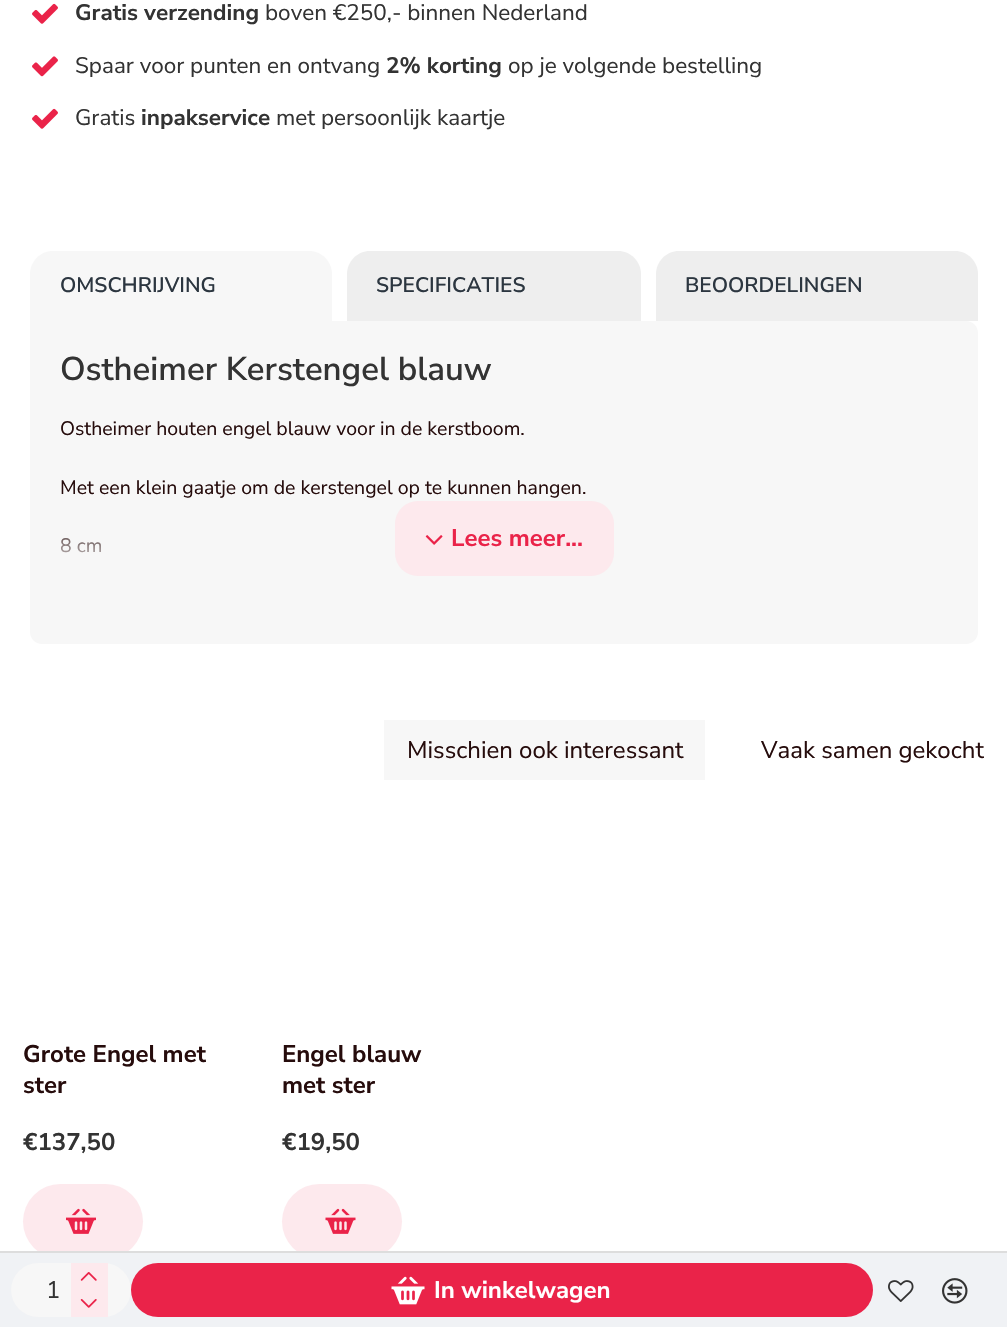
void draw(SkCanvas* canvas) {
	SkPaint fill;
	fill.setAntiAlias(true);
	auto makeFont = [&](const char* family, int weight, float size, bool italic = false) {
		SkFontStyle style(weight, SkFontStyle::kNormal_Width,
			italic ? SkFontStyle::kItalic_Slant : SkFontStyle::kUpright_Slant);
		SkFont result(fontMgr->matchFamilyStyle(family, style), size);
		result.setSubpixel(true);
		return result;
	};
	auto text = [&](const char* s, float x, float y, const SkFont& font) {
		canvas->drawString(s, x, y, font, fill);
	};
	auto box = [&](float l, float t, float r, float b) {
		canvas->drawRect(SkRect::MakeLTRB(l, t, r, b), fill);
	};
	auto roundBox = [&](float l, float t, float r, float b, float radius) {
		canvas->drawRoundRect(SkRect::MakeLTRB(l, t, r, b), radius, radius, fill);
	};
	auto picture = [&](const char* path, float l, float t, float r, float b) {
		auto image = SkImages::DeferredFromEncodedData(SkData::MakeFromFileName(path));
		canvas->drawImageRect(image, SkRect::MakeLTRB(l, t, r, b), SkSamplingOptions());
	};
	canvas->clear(0xFFFFFFFF);
	picture("image0.png", 32, 3, 58, 24);
	picture("image1.png", 32, 56, 58, 77);
	picture("image0.png", 32, 108, 58, 129);
	fill.setColor(0xFFFDE9ED);
	roundBox(23, 1184, 143, 1259, 37.5f);
	roundBox(282, 1184, 402, 1259, 37.5f);
	fill.setColor(0xFFF0F2F5);
	box(0, 1253, 1007, 1327);
	fill.setColor(0xFFDDDDDD);
	box(0, 1251, 1007, 1253);
	fill.setColor(0xFFF7F7F7);
	roundBox(11, 1263, 131, 1317, 27);
	fill.setColor(0xFFFDE9ED);
	box(71, 1263, 108, 1317);
	picture("image2.png", 80, 1272, 97, 1281);
	picture("image3.png", 80, 1299, 97, 1308);
	fill.setColor(0xFFEA2349);
	roundBox(131, 1263, 873, 1317, 27);
	picture("image4.png", 391, 1276, 425, 1305);
	picture("image5.png", 888, 1280, 914, 1302);
	picture("image6.png", 942, 1278, 968, 1304);
	fill.setColor(0xFFF7F7F7);
	canvas->drawPath(SkPathBuilder().moveTo(53, 251).lineTo(309, 251).cubicTo(321.5f, 251, 332, 261.5f, 332, 274).lineTo(332, 321).lineTo(30, 321).lineTo(30, 274).cubicTo(30, 261.5f, 40.5f, 251, 53, 251).close().detach(), fill);
	fill.setColor(0xFFEEEEEE);
	canvas->drawPath(SkPathBuilder().moveTo(370, 251).lineTo(618, 251).cubicTo(630.5f, 251, 641, 261.5f, 641, 274).lineTo(641, 321).lineTo(347, 321).lineTo(347, 274).cubicTo(347, 261.5f, 357.5f, 251, 370, 251).close().detach(), fill);
	canvas->drawPath(SkPathBuilder().moveTo(679, 251).lineTo(955, 251).cubicTo(967.5f, 251, 978, 261.5f, 978, 274).lineTo(978, 321).lineTo(656, 321).lineTo(656, 274).cubicTo(656, 261.5f, 666.5f, 251, 679, 251).close().detach(), fill);
	fill.setColor(0xFFF7F7F7);
	canvas->drawPath(SkPathBuilder().moveTo(30, 321).lineTo(966, 321).cubicTo(972.5f, 321, 978, 326.5f, 978, 333).lineTo(978, 632).cubicTo(978, 638.5f, 972.5f, 644, 966, 644).lineTo(42, 644).cubicTo(35.5f, 644, 30, 638.5f, 30, 632).close().detach(), fill);
	fill.setColor(0xFFFDE9ED);
	roundBox(395, 501, 614, 576, 23);
	picture("image7.png", 425, 535, 443, 545);
	fill.setColor(0xFFF7F7F7);
	box(384, 720, 705, 780);
	picture("image8.png", 66, 1208, 96, 1234);
	picture("image9.png", 325, 1208, 356, 1234);
	auto font1 = makeFont("Nunito Sans", 700, 22.5f);
	fill.setColor(0xFF333333);
	text("Gratis verzending", 75, 20, font1);
	auto font2 = makeFont("Nunito Sans", 400, 22.5f);
	text("boven €250,- binnen Nederland", 265, 20, font2);
	text("Spaar voor punten en ontvang", 75, 73, font2);
	text("2% korting", 386, 73, font1);
	text("op je volgende bestelling", 508, 73, font2);
	text("Gratis", 75, 125, font2);
	text("inpakservice", 141, 125, font1);
	text("met persoonlijk kaartje", 276, 125, font2);
	auto font3 = makeFont("Nunito Sans", 400, 24);
	text("1", 46, 1298, font3);
	auto font4 = makeFont("Nunito Sans", 700, 24);
	fill.setColor(0xFFFFFFFF);
	text("In winkelwagen", 434, 1298, font4);
	auto font5 = makeFont("Nunito Sans", 600, 21);
	fill.setColor(0xFF2C3640);
	text("OMSCHRIJVING", 60, 292, font5);
	text("SPECIFICATIES", 376, 292, font5);
	text("BEOORDELINGEN", 685, 292, font5);
	auto font6 = makeFont("Nunito Sans", 600, 33);
	fill.setColor(0xFF333333);
	text("Ostheimer Kerstengel blauw", 60, 380, font6);
	auto font7 = makeFont("Nunito Sans", 400, 19.5f);
	fill.setColor(0xFF260C0C);
	text("Ostheimer houten engel blauw voor in de kerstboom.", 60, 435, font7);
	text("Met een klein gaatje om de kerstengel op te kunnen hangen.", 60, 494, font7);
	text("8 cm", 60, 552, font7);
	{
		const SkColor colors[] = {0x00F7F7F7, 0xFFF7F7F7};
		const float stops[] = {0, 1};
		const SkPoint ends[] = {{504, 516}, {504, 576}};
		fill.setShader(SkGradientShader::MakeLinear(ends, colors, stops, 2, SkTileMode::kClamp));
		fill.setAlpha(255);
	}
	box(60, 538, 101, 553);
	fill.setShader(nullptr);
	fill.setColor(0xFFEA2349);
	text("Lees meer...", 451, 546, font4);
	fill.setColor(0xFF260C0C);
	text("Misschien ook interessant", 407, 758, font3);
	text("Vaak samen gekocht", 761, 758, font3);
	text("Grote Engel met", 23, 1062, font4);
	text("ster", 23, 1093, font4);
	fill.setColor(0xFF333333);
	text("€137,50", 23, 1150, font4);
	fill.setColor(0xFF260C0C);
	text("Engel blauw", 282, 1062, font4);
	text("met ster", 282, 1093, font4);
	fill.setColor(0xFF333333);
	text("€19,50", 282, 1150, font4);
}
